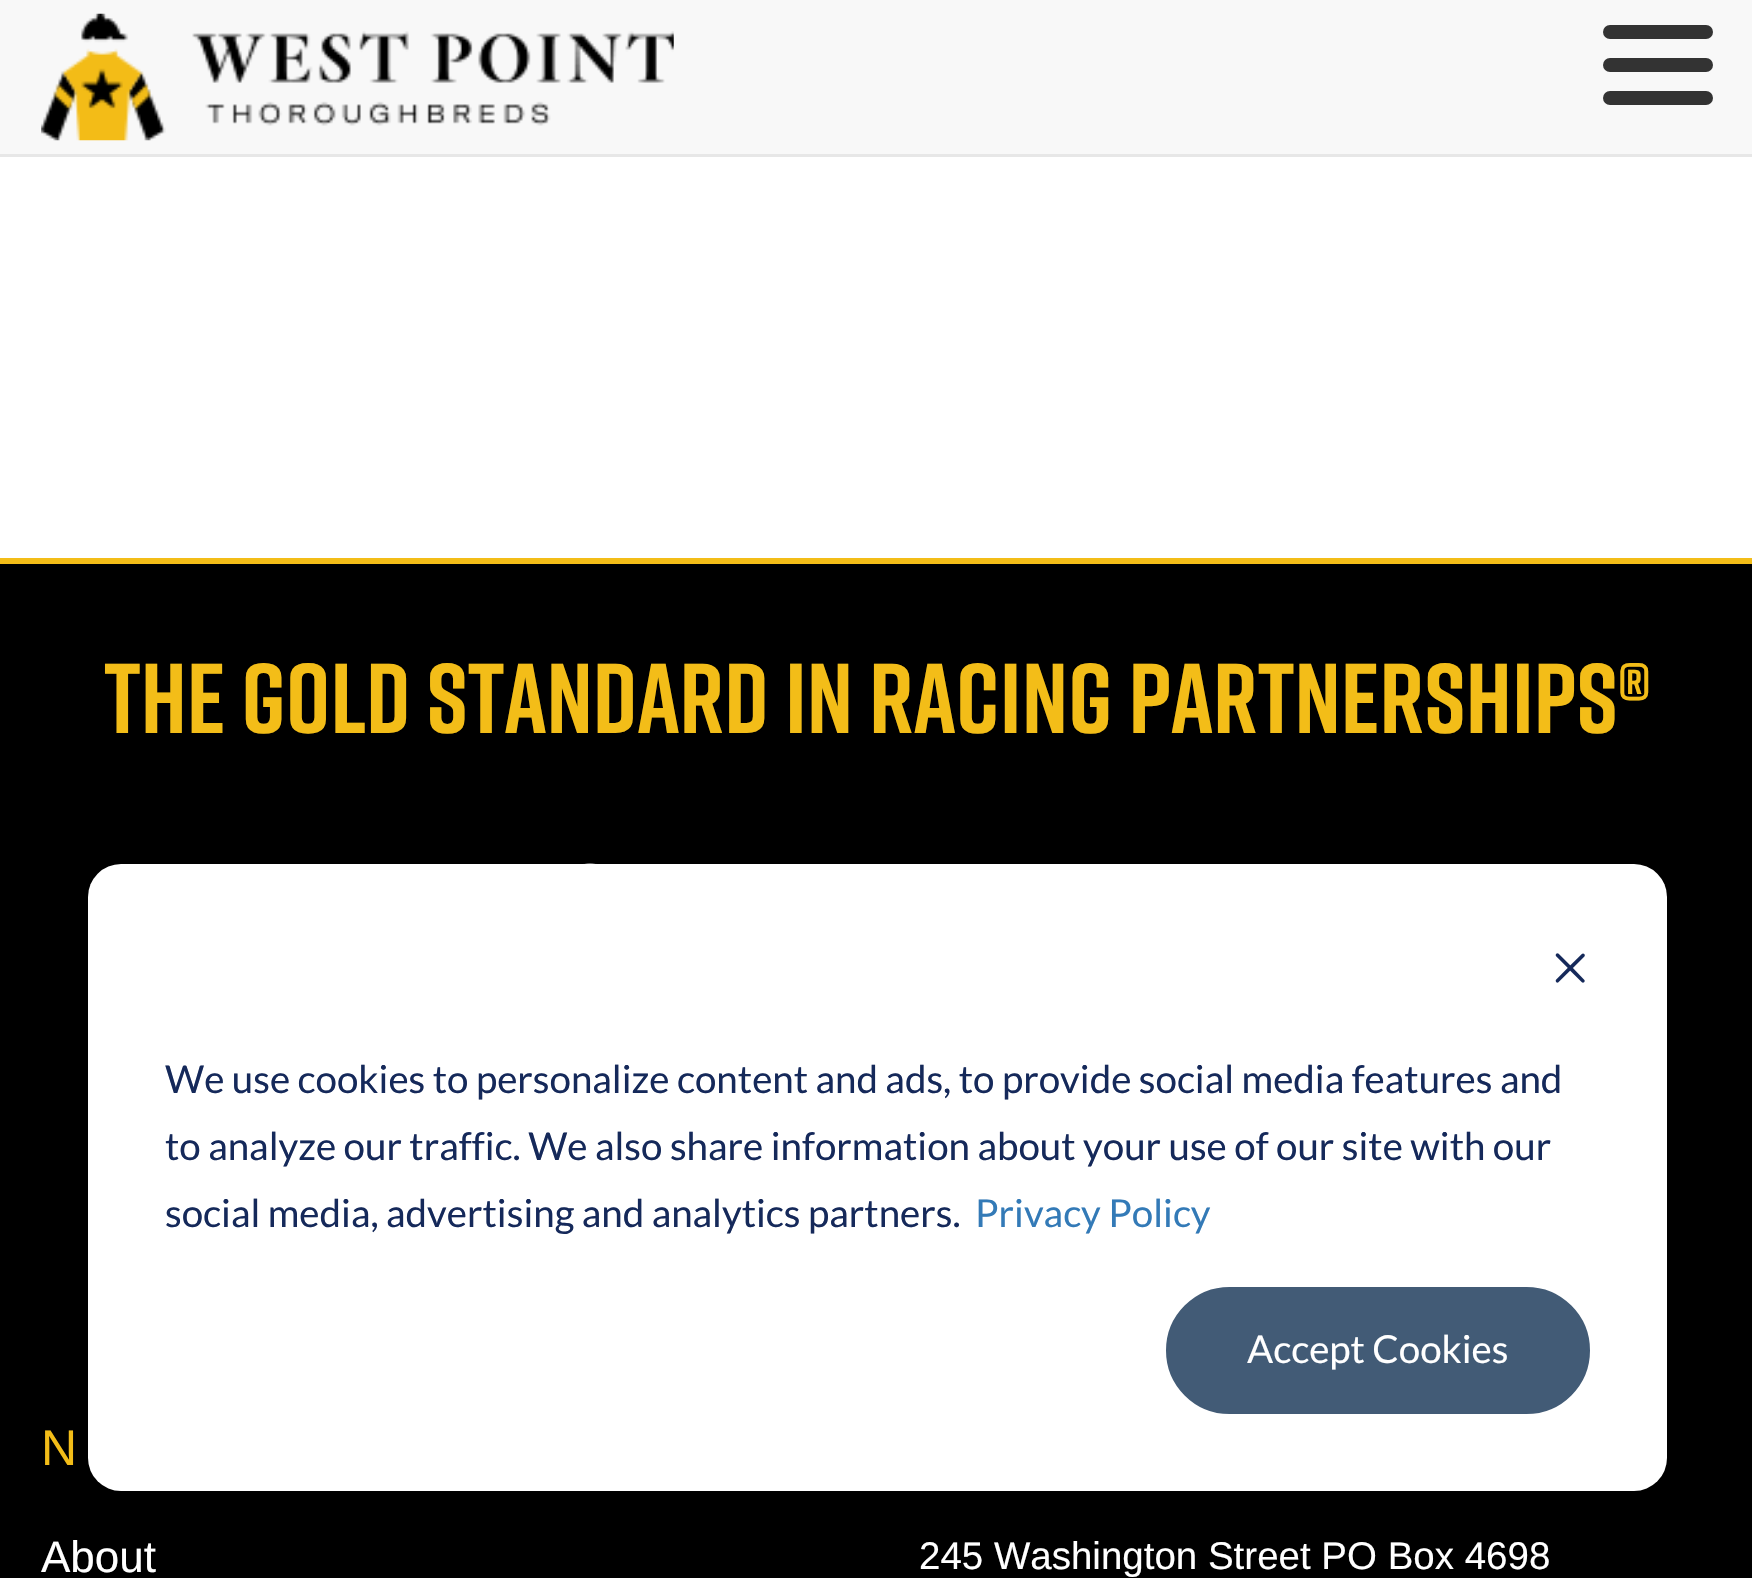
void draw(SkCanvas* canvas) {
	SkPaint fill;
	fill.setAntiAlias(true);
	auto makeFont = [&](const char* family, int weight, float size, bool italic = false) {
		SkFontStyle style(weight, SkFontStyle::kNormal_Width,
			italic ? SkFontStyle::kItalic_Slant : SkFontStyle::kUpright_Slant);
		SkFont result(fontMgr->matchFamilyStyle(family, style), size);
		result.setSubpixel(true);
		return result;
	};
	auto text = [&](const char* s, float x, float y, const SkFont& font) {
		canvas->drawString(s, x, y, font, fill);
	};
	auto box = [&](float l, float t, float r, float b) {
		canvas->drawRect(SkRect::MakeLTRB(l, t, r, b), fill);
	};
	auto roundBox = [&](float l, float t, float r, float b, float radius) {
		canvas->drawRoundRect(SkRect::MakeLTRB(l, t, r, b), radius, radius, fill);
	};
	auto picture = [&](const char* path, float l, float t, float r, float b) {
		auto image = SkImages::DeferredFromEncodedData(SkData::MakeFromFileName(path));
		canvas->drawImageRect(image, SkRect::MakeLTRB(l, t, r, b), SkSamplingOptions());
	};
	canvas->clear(0xFFFFFFFF);
	fill.setColor(0xFFF8F8F8);
	box(0, 0, 1752, 154);
	fill.setColor(0xFFE7E7E7);
	box(0, 154, 1752, 157);
	picture("image0.png", 41, 13, 674, 141);
	fill.setColor(0xFF333333);
	roundBox(1603, 25, 1713, 39, 7);
	roundBox(1603, 58, 1713, 72, 7);
	roundBox(1603, 91, 1713, 105, 7);
	fill.setColor(0xFF000000);
	box(0, 564, 1752, 1578);
	fill.setColor(0xFFF3BD18);
	box(0, 558, 1752, 564);
	picture("image1.png", 583, 863, 597, 864);
	fill.setColor(0x47000000);
	fill.setMaskFilter(SkMaskFilter::MakeBlur(kNormal_SkBlurStyle, 38.5f));
	canvas->drawRoundRect(SkRect::MakeLTRB(88, 886, 1667, 1513), 33, 33, fill);
	fill.setMaskFilter(nullptr);
	fill.setColor(0xFFFFFFFF);
	roundBox(88, 864, 1667, 1491, 33);
	picture("image2.png", 1555, 953, 1585, 983);
	fill.setColor(0xFF425B76);
	canvas->drawRoundRect(SkRect::MakeLTRB(1167.5f, 1288.5f, 1588.5f, 1412.5f), 62, 62, fill);
	fill.setStyle(SkPaint::kStroke_Style);
	fill.setStrokeWidth(3);
	canvas->drawRoundRect(SkRect::MakeLTRB(1167.5f, 1288.5f, 1588.5f, 1412.5f), 62, 62, fill);
	auto font1 = makeFont("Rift", 700, 99);
	fill.setStyle(SkPaint::kFill_Style);
	fill.setColor(0xFFF3BD18);
	text("THE GOLD STANDARD IN RACING PARTNERSHIPS®", 104, 733, font1);
	auto font2 = makeFont("Liberation Sans", 400, 50);
	text("N", 41, 1465, font2);
	auto font3 = makeFont("Liberation Sans", 400, 44);
	fill.setColor(0xFFFFFFFF);
	text("About", 41, 1572, font3);
	auto font4 = makeFont("Liberation Sans", 400, 38.5f);
	text("245 Washington Street PO Box 4698", 919, 1569, font4);
	auto font5 = makeFont("Lato", 400, 38.5f);
	fill.setColor(0xFF15295A);
	text("We use cookies to personalize content and ads, to provide social media features and", 165, 1093, font5);
	text("to analyze our traffic. We also share information about your use of our site with our", 165, 1160, font5);
	text("social media, advertising and analytics partners.", 165, 1227, font5);
	fill.setColor(0xFF337AB7);
	text("Privacy Policy", 975, 1227, font5);
	fill.setColor(0xFFFFFFFF);
	text("Accept Cookies", 1247, 1363, font5);
}
